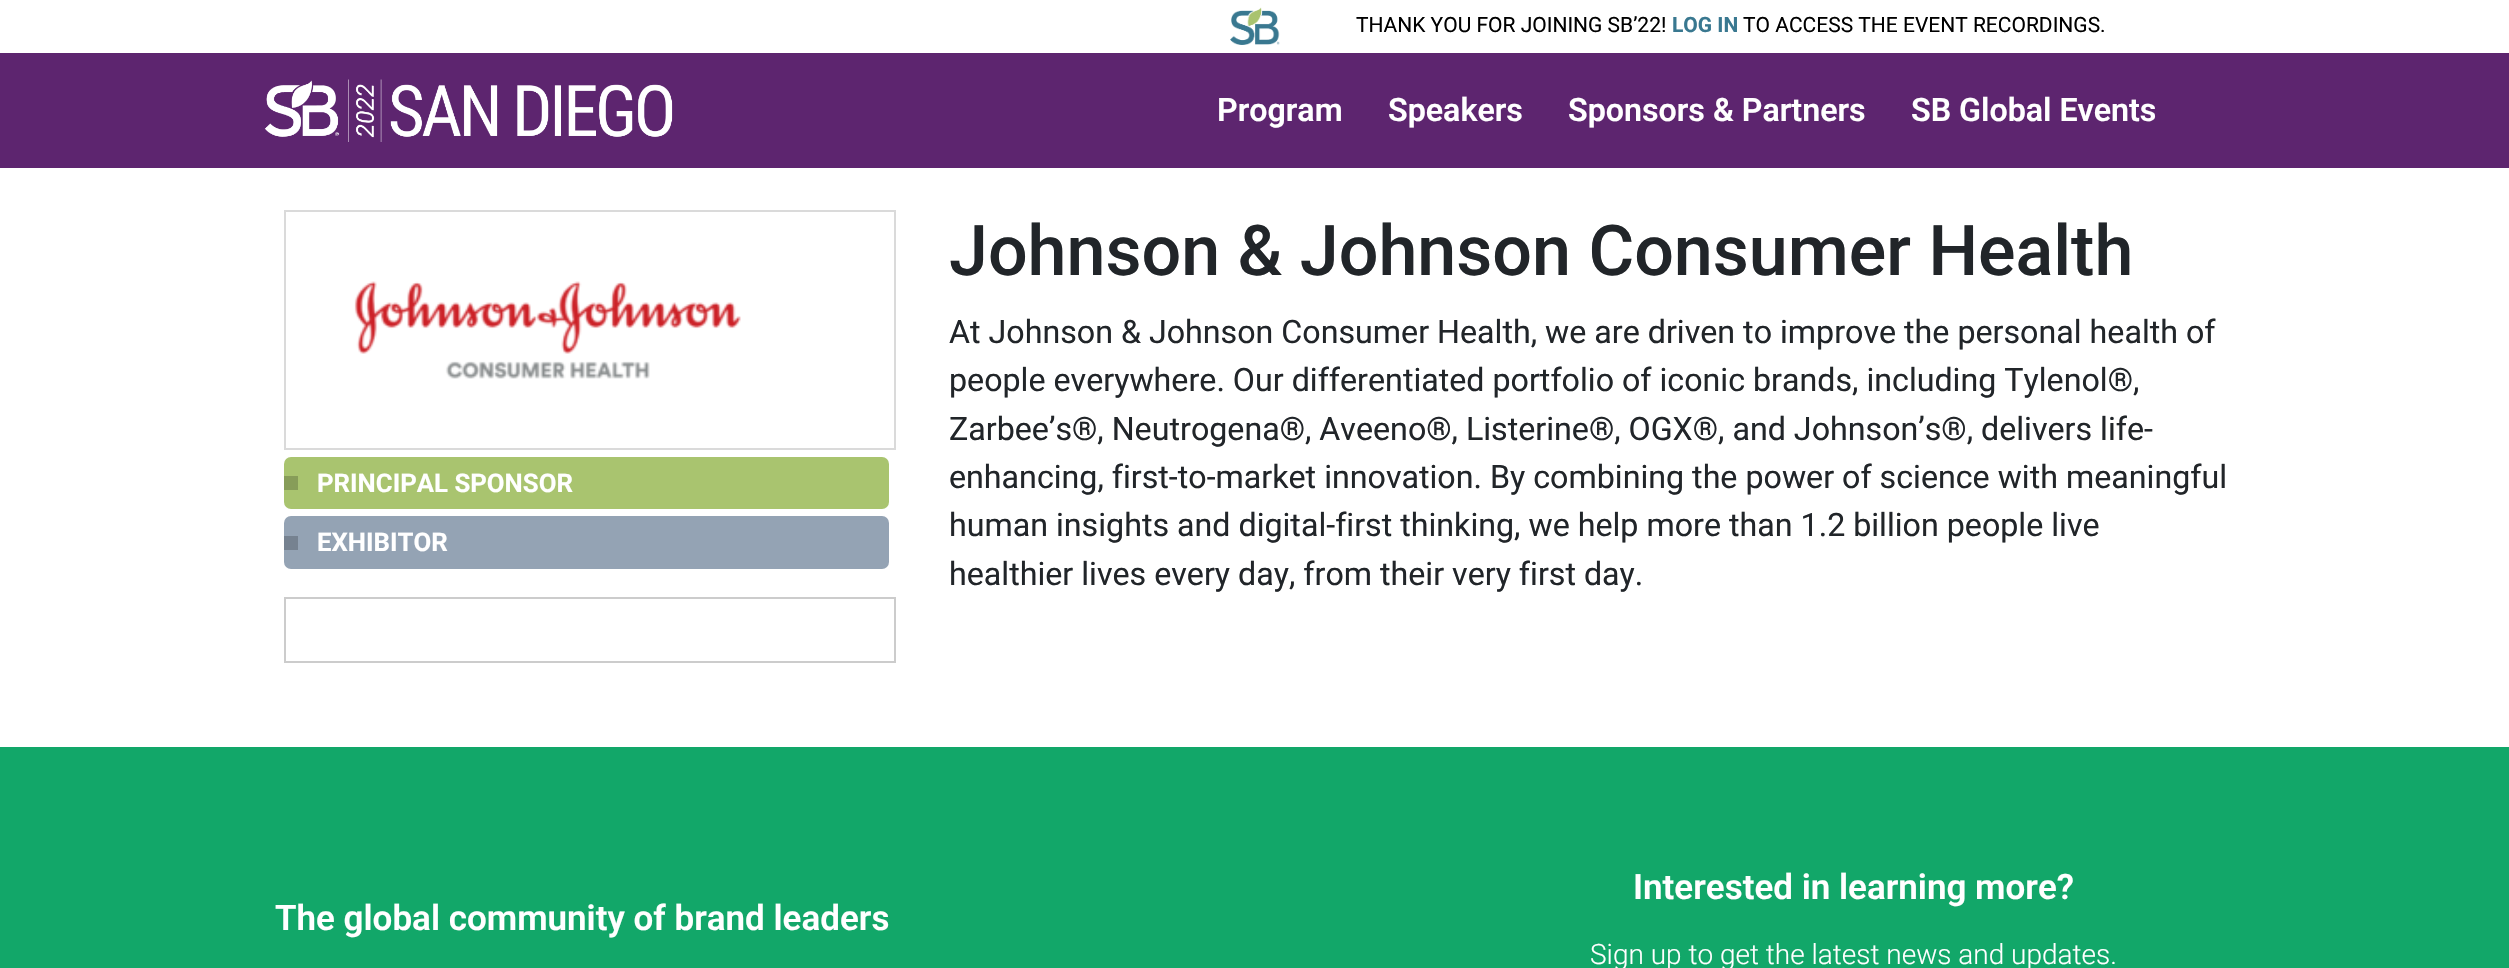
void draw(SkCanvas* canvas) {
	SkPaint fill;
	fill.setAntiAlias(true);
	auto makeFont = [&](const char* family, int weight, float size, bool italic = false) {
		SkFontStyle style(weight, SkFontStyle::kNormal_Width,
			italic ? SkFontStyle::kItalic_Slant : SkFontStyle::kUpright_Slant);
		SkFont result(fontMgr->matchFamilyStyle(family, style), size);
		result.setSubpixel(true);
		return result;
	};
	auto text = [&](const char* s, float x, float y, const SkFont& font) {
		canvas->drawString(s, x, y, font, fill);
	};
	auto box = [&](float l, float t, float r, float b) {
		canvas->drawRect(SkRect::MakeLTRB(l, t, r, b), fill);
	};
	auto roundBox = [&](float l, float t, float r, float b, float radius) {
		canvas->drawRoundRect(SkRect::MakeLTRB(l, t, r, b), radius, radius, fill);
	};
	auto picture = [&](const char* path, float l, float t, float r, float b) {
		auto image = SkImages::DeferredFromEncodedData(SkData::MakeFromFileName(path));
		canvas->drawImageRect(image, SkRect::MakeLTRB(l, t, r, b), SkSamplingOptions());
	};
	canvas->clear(0xFFFFFFFF);
	picture("image0.png", 1230, 7, 1280, 45);
	fill.setColor(0xFF5D256F);
	box(0, 53, 2509, 168);
	picture("image1.png", 264, 79, 673, 142);
	fill.setStyle(SkPaint::kStroke_Style);
	fill.setStrokeWidth(2);
	fill.setColor(0xFFDADADA);
	canvas->drawRect(SkRect::MakeLTRB(285, 211, 895, 449), fill);
	picture("image2.png", 354, 281, 741, 379);
	fill.setStyle(SkPaint::kFill_Style);
	fill.setColor(0xFFA9C46F);
	roundBox(284, 457, 889, 509, 7);
	fill.setColor(0xFF879D59);
	box(284, 476, 298, 490);
	fill.setColor(0xFF94A3B4);
	roundBox(284, 516, 889, 569, 7);
	fill.setColor(0xFF768290);
	box(284, 536, 298, 550);
	fill.setStyle(SkPaint::kStroke_Style);
	fill.setColor(0xFFCCCCCC);
	canvas->drawRect(SkRect::MakeLTRB(285, 598, 895, 662), fill);
	fill.setStyle(SkPaint::kFill_Style);
	fill.setColor(0xFF12A769);
	box(0, 747, 2509, 968);
	auto font1 = makeFont("Roboto", 400, 21);
	fill.setColor(0xFF000000);
	text("THANK YOU FOR JOINING SB’22!", 1356, 32, font1);
	auto font2 = makeFont("Roboto", 700, 21);
	fill.setColor(0xFF397890);
	text("LOG IN", 1672, 32, font2);
	fill.setColor(0xFF000000);
	text("TO ACCESS THE EVENT RECORDINGS.", 1743, 32, font1);
	auto font3 = makeFont("Roboto", 600, 32.2f);
	fill.setColor(0xFFFFFFFF);
	text("Program", 1217, 121, font3);
	text("Speakers", 1388, 121, font3);
	text("Sponsors & Partners", 1568, 121, font3);
	text("SB Global Events", 1911, 121, font3);
	auto font4 = makeFont("Roboto", 700, 25.75f);
	text("PRINCIPAL SPONSOR", 317, 492, font4);
	text("EXHIBITOR", 317, 551, font4);
	auto font5 = makeFont("Roboto", 500, 70);
	fill.setColor(0xFF212529);
	text("Johnson & Johnson Consumer Health", 949, 275, font5);
	auto font6 = makeFont("Roboto", 400, 32.2f);
	text("At Johnson & Johnson Consumer Health, we are driven to improve the personal health of", 949, 343, font6);
	text("people everywhere. Our differentiated portfolio of iconic brands, including Tylenol®,", 949, 391, font6);
	text("Zarbee’s®, Neutrogena®, Aveeno®, Listerine®, OGX®, and Johnson’s®, delivers life-", 949, 440, font6);
	text("enhancing, first-to-market innovation. By combining the power of science with meaningful", 949, 488, font6);
	text("human insights and digital-first thinking, we help more than 1.2 billion people live", 949, 536, font6);
	text("healthier lives every day, from their very first day.", 949, 585, font6);
	auto font7 = makeFont("Roboto", 600, 35);
	fill.setColor(0xFFFFFFFF);
	text("The global community of brand leaders", 275, 930, font7);
	text("Interested in learning more?", 1633, 899, font7);
	auto font8 = makeFont("Roboto", 300, 28);
	text("Sign up to get the latest news and updates.", 1590, 964, font8);
}
